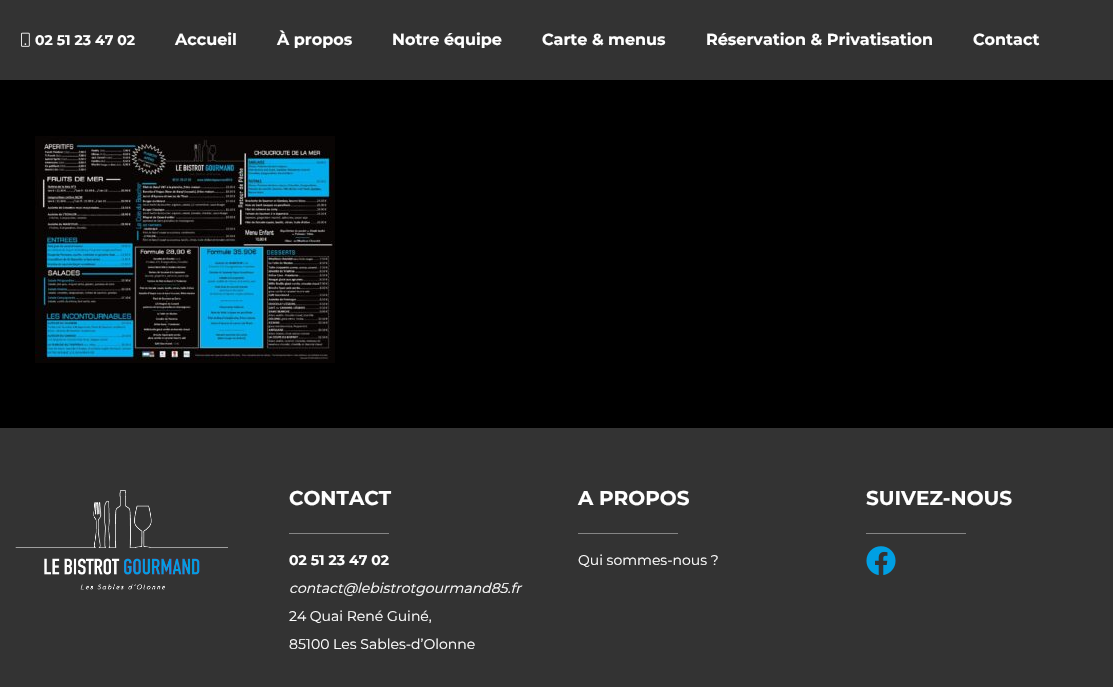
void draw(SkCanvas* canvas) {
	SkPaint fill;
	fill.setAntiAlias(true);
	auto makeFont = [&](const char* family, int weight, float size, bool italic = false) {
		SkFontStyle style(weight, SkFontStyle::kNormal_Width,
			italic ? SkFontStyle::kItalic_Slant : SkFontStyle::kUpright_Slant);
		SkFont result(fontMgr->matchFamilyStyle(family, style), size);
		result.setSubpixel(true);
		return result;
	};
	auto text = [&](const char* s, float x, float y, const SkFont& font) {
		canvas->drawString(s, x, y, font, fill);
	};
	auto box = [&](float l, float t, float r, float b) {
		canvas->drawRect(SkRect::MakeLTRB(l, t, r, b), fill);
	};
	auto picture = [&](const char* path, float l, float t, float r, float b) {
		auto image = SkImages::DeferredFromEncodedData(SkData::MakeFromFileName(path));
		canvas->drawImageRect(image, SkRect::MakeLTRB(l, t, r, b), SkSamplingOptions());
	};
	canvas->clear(0xFF000000);
	fill.setColor(0xFF333333);
	box(0, 0, 1113, 80);
	picture("image0.png", 21, 32, 30, 47);
	picture("image1.png", 35, 136, 335, 363);
	box(0, 428, 1113, 687);
	picture("image2.png", 15, 490, 228, 590);
	fill.setColor(0xFF858585);
	box(289, 533, 389, 534);
	box(578, 533, 678, 534);
	box(866, 533, 966, 534);
	picture("image3.png", 866, 546, 896, 575);
	auto font1 = makeFont("Montserrat", 700, 14);
	fill.setColor(0xFFFFFFFF);
	text("02 51 23 47 02", 35, 45, font1);
	auto font2 = makeFont("Montserrat", 700, 16);
	text("Accueil", 175, 45, font2);
	text("À propos", 277, 45, font2);
	text("Notre équipe", 392, 45, font2);
	text("Carte & menus", 542, 45, font2);
	text("Réservation & Privatisation", 706, 45, font2);
	text("Contact", 973, 45, font2);
	auto font3 = makeFont("Montserrat", 700, 20);
	text("CONTACT", 289, 505, font3);
	text("02 51 23 47 02", 289, 565, font1);
	auto font4 = makeFont("Montserrat", 400, 14, true);
	text("contact@lebistrotgourmand85.fr", 289, 593, font4);
	auto font5 = makeFont("Montserrat", 400, 14);
	text("24 Quai René Guiné,", 289, 621, font5);
	text("85100 Les Sables-d’Olonne", 289, 649, font5);
	text("A PROPOS", 578, 505, font3);
	text("Qui sommes-nous ?", 578, 565, font5);
	text("SUIVEZ-NOUS", 866, 505, font3);
}
